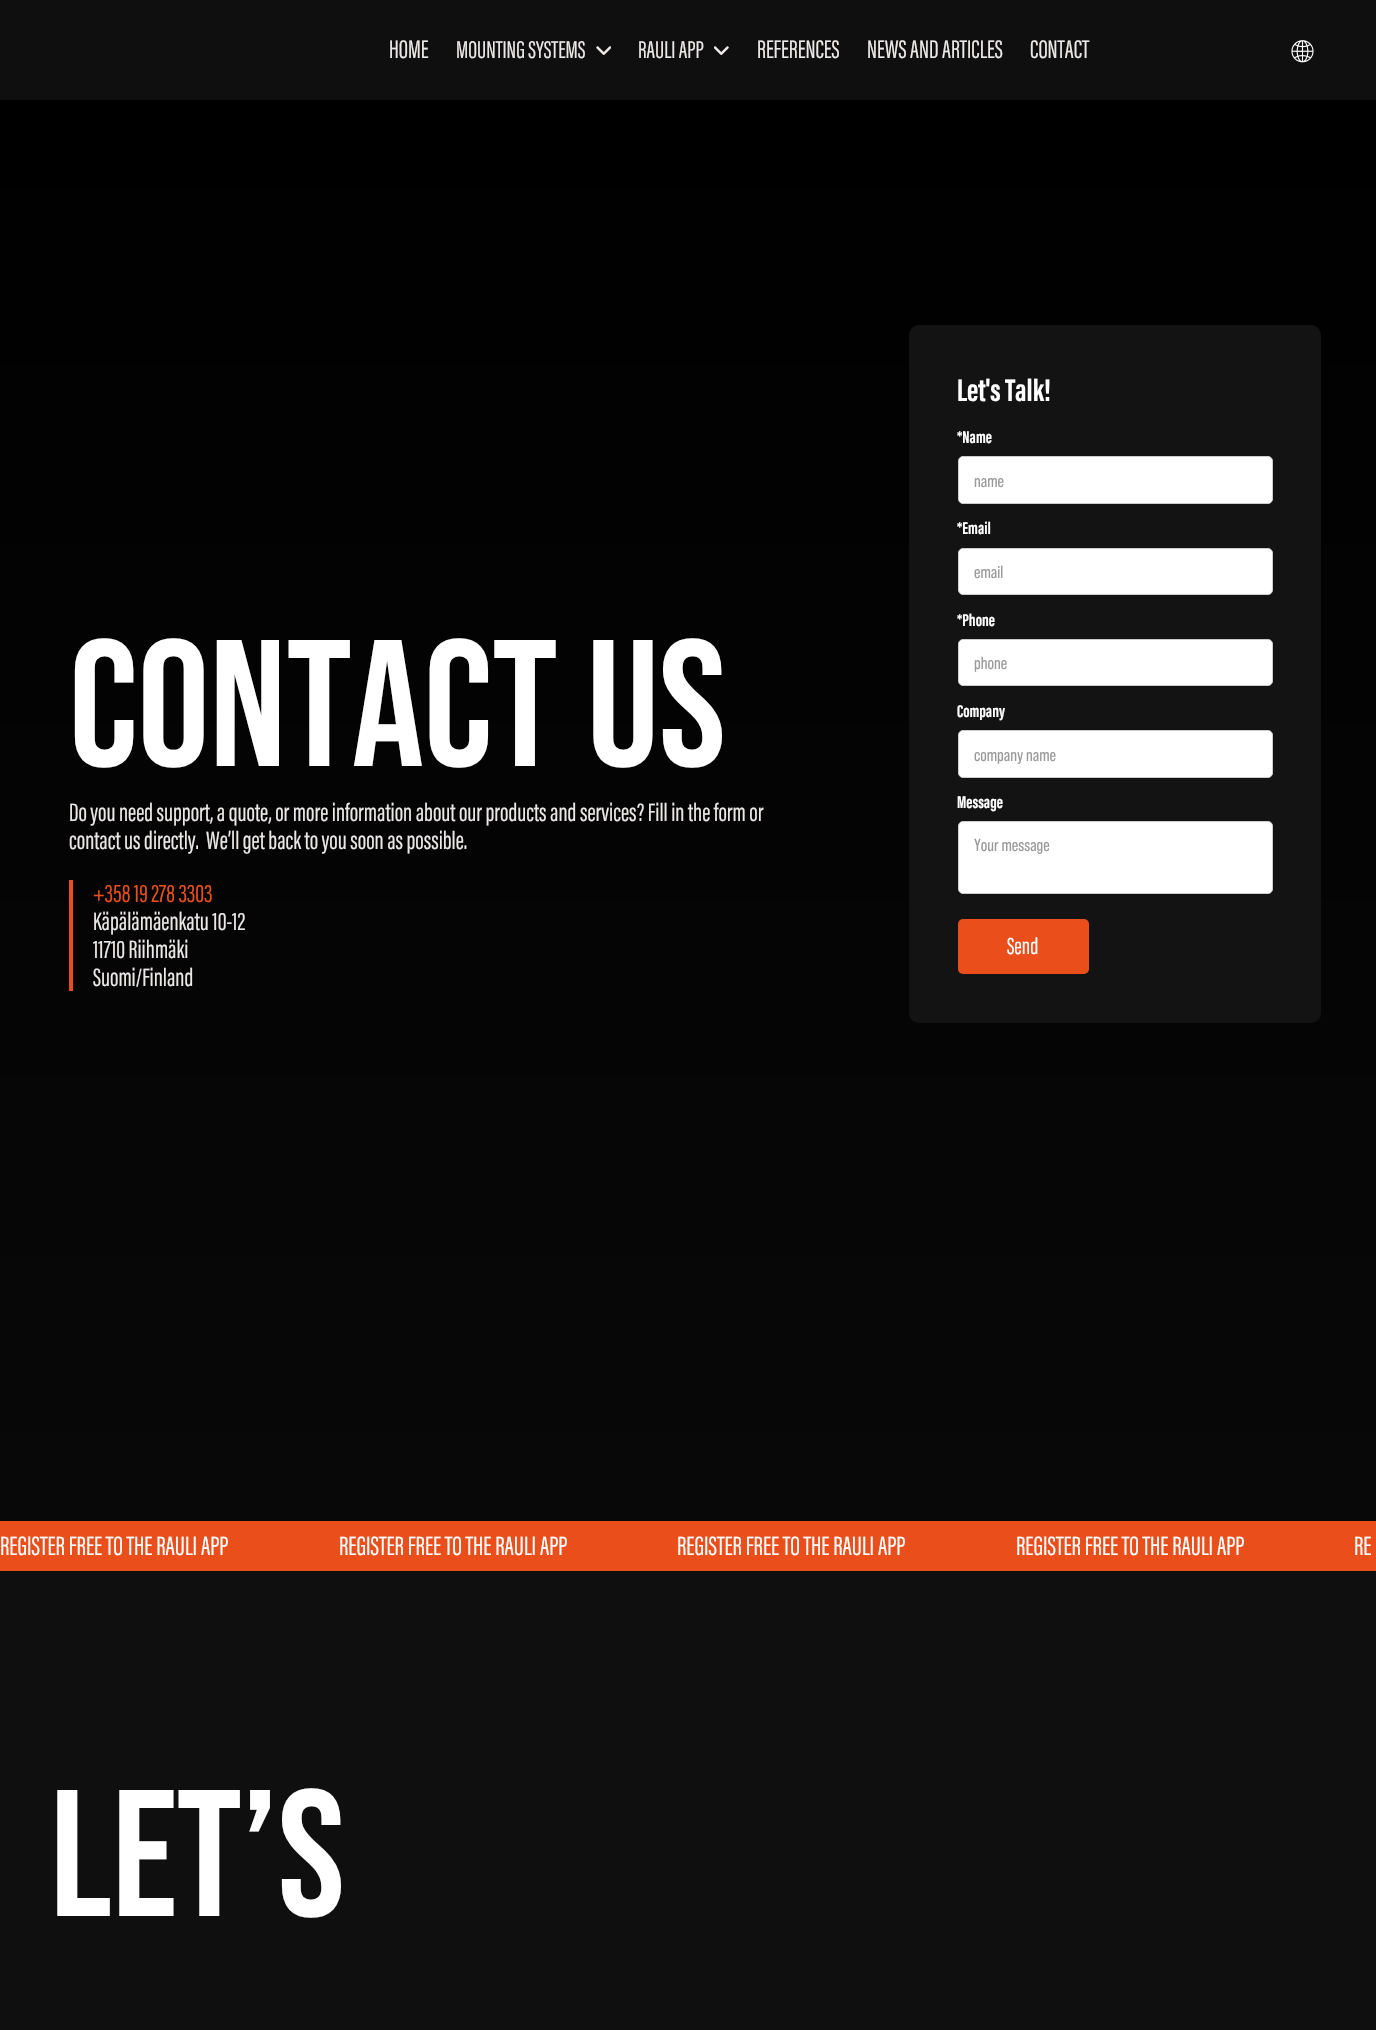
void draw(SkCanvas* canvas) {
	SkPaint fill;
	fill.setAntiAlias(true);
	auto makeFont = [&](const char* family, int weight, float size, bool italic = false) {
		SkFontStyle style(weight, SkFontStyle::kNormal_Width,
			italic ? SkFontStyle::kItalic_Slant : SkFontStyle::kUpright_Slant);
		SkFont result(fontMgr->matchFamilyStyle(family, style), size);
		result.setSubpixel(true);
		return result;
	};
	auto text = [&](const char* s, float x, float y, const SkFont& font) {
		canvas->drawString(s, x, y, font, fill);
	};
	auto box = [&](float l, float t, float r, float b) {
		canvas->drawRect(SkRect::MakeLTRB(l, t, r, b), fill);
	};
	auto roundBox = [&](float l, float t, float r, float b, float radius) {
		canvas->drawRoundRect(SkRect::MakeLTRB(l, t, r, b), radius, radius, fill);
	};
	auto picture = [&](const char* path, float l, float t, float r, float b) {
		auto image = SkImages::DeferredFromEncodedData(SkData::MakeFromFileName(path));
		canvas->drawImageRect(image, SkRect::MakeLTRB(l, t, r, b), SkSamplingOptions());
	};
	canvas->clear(0xFF0F0F0F);
	picture("image0.png", 596, 46, 611, 55);
	picture("image1.png", 714, 46, 729, 55);
	picture("image2.png", 1291, 40, 1314, 63);
	{
		const SkColor colors[] = {0xFF000000, 0xFF080808};
		const float stops[] = {0, 1};
		const SkPoint ends[] = {{688, 100}, {688, 1521}};
		fill.setShader(SkGradientShader::MakeLinear(ends, colors, stops, 2, SkTileMode::kClamp));
		fill.setAlpha(255);
	}
	box(0, 100, 1376, 1521);
	fill.setShader(nullptr);
	fill.setColor(0xFFE94E1B);
	box(69, 880, 73, 991);
	fill.setColor(0xCC161616);
	roundBox(909, 325, 1321, 1023, 10);
	fill.setColor(0xFFFFFFFF);
	canvas->drawRoundRect(SkRect::MakeLTRB(958.5f, 456.5f, 1272.5f, 503.5f), 4.5f, 4.5f, fill);
	fill.setStyle(SkPaint::kStroke_Style);
	fill.setStrokeWidth(1);
	fill.setColor(0xFFCCCCCC);
	canvas->drawRoundRect(SkRect::MakeLTRB(958.5f, 456.5f, 1272.5f, 503.5f), 4.5f, 4.5f, fill);
	fill.setStyle(SkPaint::kFill_Style);
	fill.setColor(0xFFFFFFFF);
	canvas->drawRoundRect(SkRect::MakeLTRB(958.5f, 548.5f, 1272.5f, 594.5f), 4.5f, 4.5f, fill);
	fill.setStyle(SkPaint::kStroke_Style);
	fill.setColor(0xFFCCCCCC);
	canvas->drawRoundRect(SkRect::MakeLTRB(958.5f, 548.5f, 1272.5f, 594.5f), 4.5f, 4.5f, fill);
	fill.setStyle(SkPaint::kFill_Style);
	fill.setColor(0xFFFFFFFF);
	canvas->drawRoundRect(SkRect::MakeLTRB(958.5f, 639.5f, 1272.5f, 685.5f), 4.5f, 4.5f, fill);
	fill.setStyle(SkPaint::kStroke_Style);
	fill.setColor(0xFFCCCCCC);
	canvas->drawRoundRect(SkRect::MakeLTRB(958.5f, 639.5f, 1272.5f, 685.5f), 4.5f, 4.5f, fill);
	fill.setStyle(SkPaint::kFill_Style);
	fill.setColor(0xFFFFFFFF);
	canvas->drawRoundRect(SkRect::MakeLTRB(958.5f, 730.5f, 1272.5f, 777.5f), 4.5f, 4.5f, fill);
	fill.setStyle(SkPaint::kStroke_Style);
	fill.setColor(0xFFCCCCCC);
	canvas->drawRoundRect(SkRect::MakeLTRB(958.5f, 730.5f, 1272.5f, 777.5f), 4.5f, 4.5f, fill);
	fill.setStyle(SkPaint::kFill_Style);
	fill.setColor(0xFFFFFFFF);
	canvas->drawRoundRect(SkRect::MakeLTRB(958.5f, 821.5f, 1272.5f, 893.5f), 4.5f, 4.5f, fill);
	fill.setStyle(SkPaint::kStroke_Style);
	fill.setColor(0xFFCCCCCC);
	canvas->drawRoundRect(SkRect::MakeLTRB(958.5f, 821.5f, 1272.5f, 893.5f), 4.5f, 4.5f, fill);
	fill.setStyle(SkPaint::kFill_Style);
	fill.setColor(0xFFE94E1B);
	roundBox(958, 919, 1089, 974, 5);
	box(0, 1521, 1376, 1571);
	auto font1 = makeFont("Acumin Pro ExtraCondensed", 400, 26.25f);
	fill.setColor(0xFFEBE8E7);
	text("HOME", 389, 58, font1);
	auto font2 = makeFont("Acumin Pro ExtraCondensed", 400, 25);
	text("MOUNTING SYSTEMS", 456, 58, font2);
	text("RAULI APP", 638, 58, font2);
	text("REFERENCES", 757, 58, font1);
	text("NEWS AND ARTICLES", 867, 58, font1);
	text("CONTACT", 1030, 58, font1);
	auto font3 = makeFont("Bebas Neue", 700, 180);
	fill.setColor(0xFFFFFFFF);
	text("CONTACT US", 69, 766, font3);
	auto font4 = makeFont("Acumin Pro ExtraCondensed", 400, 26);
	fill.setColor(0xFFEBE8E7);
	text("Do you need support, a quote, or more information about our products and services? Fill in the form or", 69, 821, font4);
	text("contact us directly.  We’ll get back to you soon as possible.", 69, 849, font4);
	fill.setColor(0xFFE94E1B);
	text("+358 19 278 3303", 93, 902, font4);
	fill.setColor(0xFFEBE8E7);
	text("Käpälämäenkatu 10-12", 93, 930, font4);
	text("11710 Riihmäki", 93, 958, font4);
	text("Suomi/Finland", 93, 986, font4);
	auto font5 = makeFont("Acumin Pro ExtraCondensed", 700, 32);
	fill.setColor(0xFFFFFFFF);
	text("Let's Talk!", 957, 401, font5);
	auto font6 = makeFont("Acumin Pro ExtraCondensed", 700, 17.5f);
	text("*Name", 957, 443, font6);
	auto font7 = makeFont("Bebas Neue", 400, 17.5f);
	fill.setColor(0xFF999999);
	text("name", 974, 487, font7);
	fill.setColor(0xFFFFFFFF);
	text("*Email", 957, 534, font6);
	fill.setColor(0xFF999999);
	text("email", 974, 578, font7);
	fill.setColor(0xFFFFFFFF);
	text("*Phone", 957, 626, font6);
	fill.setColor(0xFF999999);
	text("phone", 974, 669, font7);
	fill.setColor(0xFFFFFFFF);
	text("Company", 957, 717, font6);
	fill.setColor(0xFF999999);
	text("company name", 974, 761, font7);
	fill.setColor(0xFFFFFFFF);
	text("Message", 957, 808, font6);
	fill.setColor(0xFF999999);
	text("Your message", 974, 851, font7);
	auto font8 = makeFont("Acumin Pro ExtraCondensed", 400, 24);
	fill.setColor(0xFFFFFFFF);
	text("Send", 1007, 954, font8);
	auto font9 = makeFont("Acumin Pro ExtraCondensed", 400, 27.5f);
	text("REGISTER FREE TO THE RAULI APP", 0, 1555, font9);
	text("REGISTER FREE TO THE RAULI APP", 339, 1555, font9);
	text("REGISTER FREE TO THE RAULI APP", 677, 1555, font9);
	text("REGISTER FREE TO THE RAULI APP", 1016, 1555, font9);
	text("RE", 1354, 1555, font9);
	text("LET’S", 50, 1916, font3);
}
